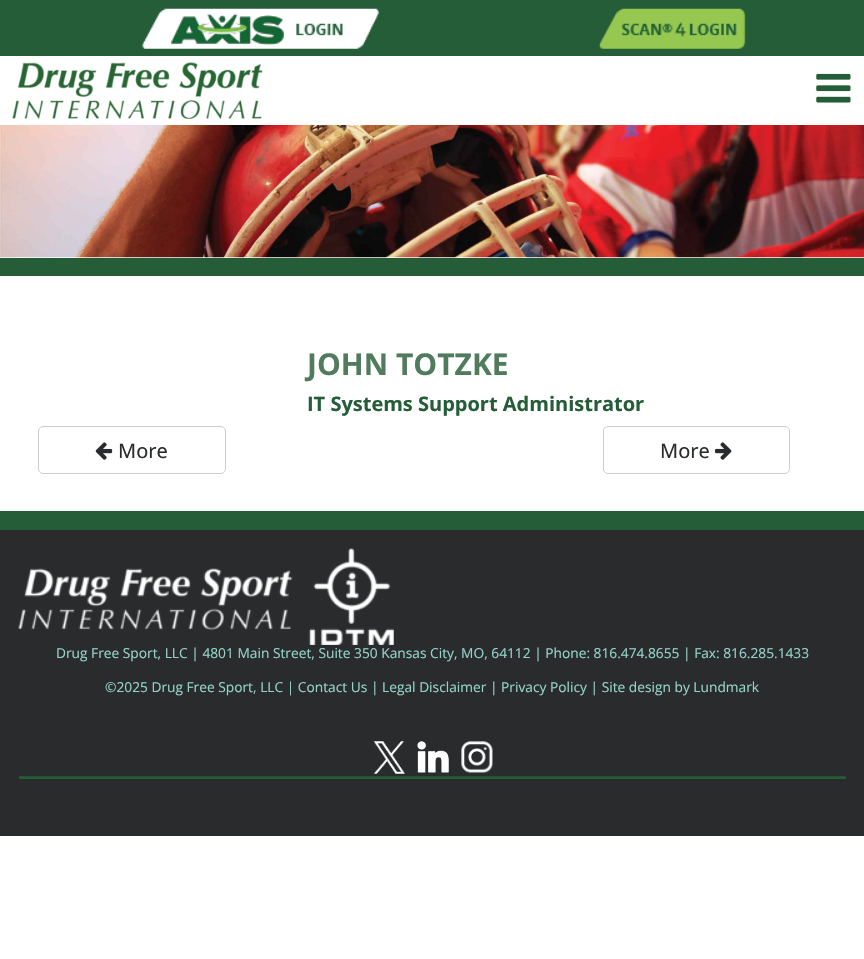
void draw(SkCanvas* canvas) {
	SkPaint fill;
	fill.setAntiAlias(true);
	auto makeFont = [&](const char* family, int weight, float size, bool italic = false) {
		SkFontStyle style(weight, SkFontStyle::kNormal_Width,
			italic ? SkFontStyle::kItalic_Slant : SkFontStyle::kUpright_Slant);
		SkFont result(fontMgr->matchFamilyStyle(family, style), size);
		result.setSubpixel(true);
		return result;
	};
	auto text = [&](const char* s, float x, float y, const SkFont& font) {
		canvas->drawString(s, x, y, font, fill);
	};
	auto box = [&](float l, float t, float r, float b) {
		canvas->drawRect(SkRect::MakeLTRB(l, t, r, b), fill);
	};
	auto picture = [&](const char* path, float l, float t, float r, float b) {
		auto image = SkImages::DeferredFromEncodedData(SkData::MakeFromFileName(path));
		canvas->drawImageRect(image, SkRect::MakeLTRB(l, t, r, b), SkSamplingOptions());
	};
	canvas->clear(0xFFFFFFFF);
	fill.setColor(0xFF245D38);
	box(0, 0, 864, 56);
	picture("image0.png", 142, 8, 379, 49);
	picture("image1.png", 598, 8, 746, 49);
	picture("image2.png", 12, 62, 263, 119);
	picture("image3.png", 816, 73, 851, 103);
	box(0, 258, 864, 276);
	picture("image4.png", 0, 125, 864, 258);
	fill.setStyle(SkPaint::kStroke_Style);
	fill.setStrokeWidth(1);
	fill.setColor(0xFFCCCCCC);
	canvas->drawRoundRect(SkRect::MakeLTRB(38.5f, 426.5f, 225.5f, 473.5f), 4.5f, 4.5f, fill);
	picture("image5.png", 95, 442, 113, 460);
	canvas->drawRoundRect(SkRect::MakeLTRB(603.5f, 426.5f, 789.5f, 473.5f), 4.5f, 4.5f, fill);
	picture("image6.png", 715, 442, 732, 460);
	fill.setStyle(SkPaint::kFill_Style);
	fill.setColor(0xFF292B2C);
	box(0, 530, 864, 836);
	fill.setColor(0xFF245D38);
	box(0, 511, 864, 530);
	picture("image7.png", 18, 548, 394, 645);
	picture("image8.png", 373, 741, 405, 774);
	picture("image9.png", 417, 741, 449, 773);
	picture("image10.png", 461, 741, 493, 773);
	box(19, 777, 846, 779);
	fill.setColor(0xFF205432);
	box(19, 776, 846, 777);
	auto font1 = makeFont("Open Sans", 700, 30);
	fill.setColor(0xFF507B5C);
	text("JOHN TOTZKE", 307, 375, font1);
	auto font2 = makeFont("Open Sans", 700, 20);
	fill.setColor(0xFF245D38);
	text("IT Systems Support Administrator", 307, 411, font2);
	auto font3 = makeFont("Noto Sans", 400, 20);
	fill.setColor(0xFF292B2C);
	text("More", 118, 458, font3);
	text("More", 660, 458, font3);
	auto font4 = makeFont("Open Sans", 400, 13.75f);
	fill.setColor(0xFF94D4CA);
	text("Drug Free Sport, LLC | 4801 Main Street, Suite 350 Kansas City, MO, 64112 | Phone: 816.474.8655 | Fax: 816.285.1433", 56, 658, font4);
	text("©2025 Drug Free Sport, LLC | Contact Us | Legal Disclaimer | Privacy Policy | Site design by Lundmark", 105, 692, font4);
}
